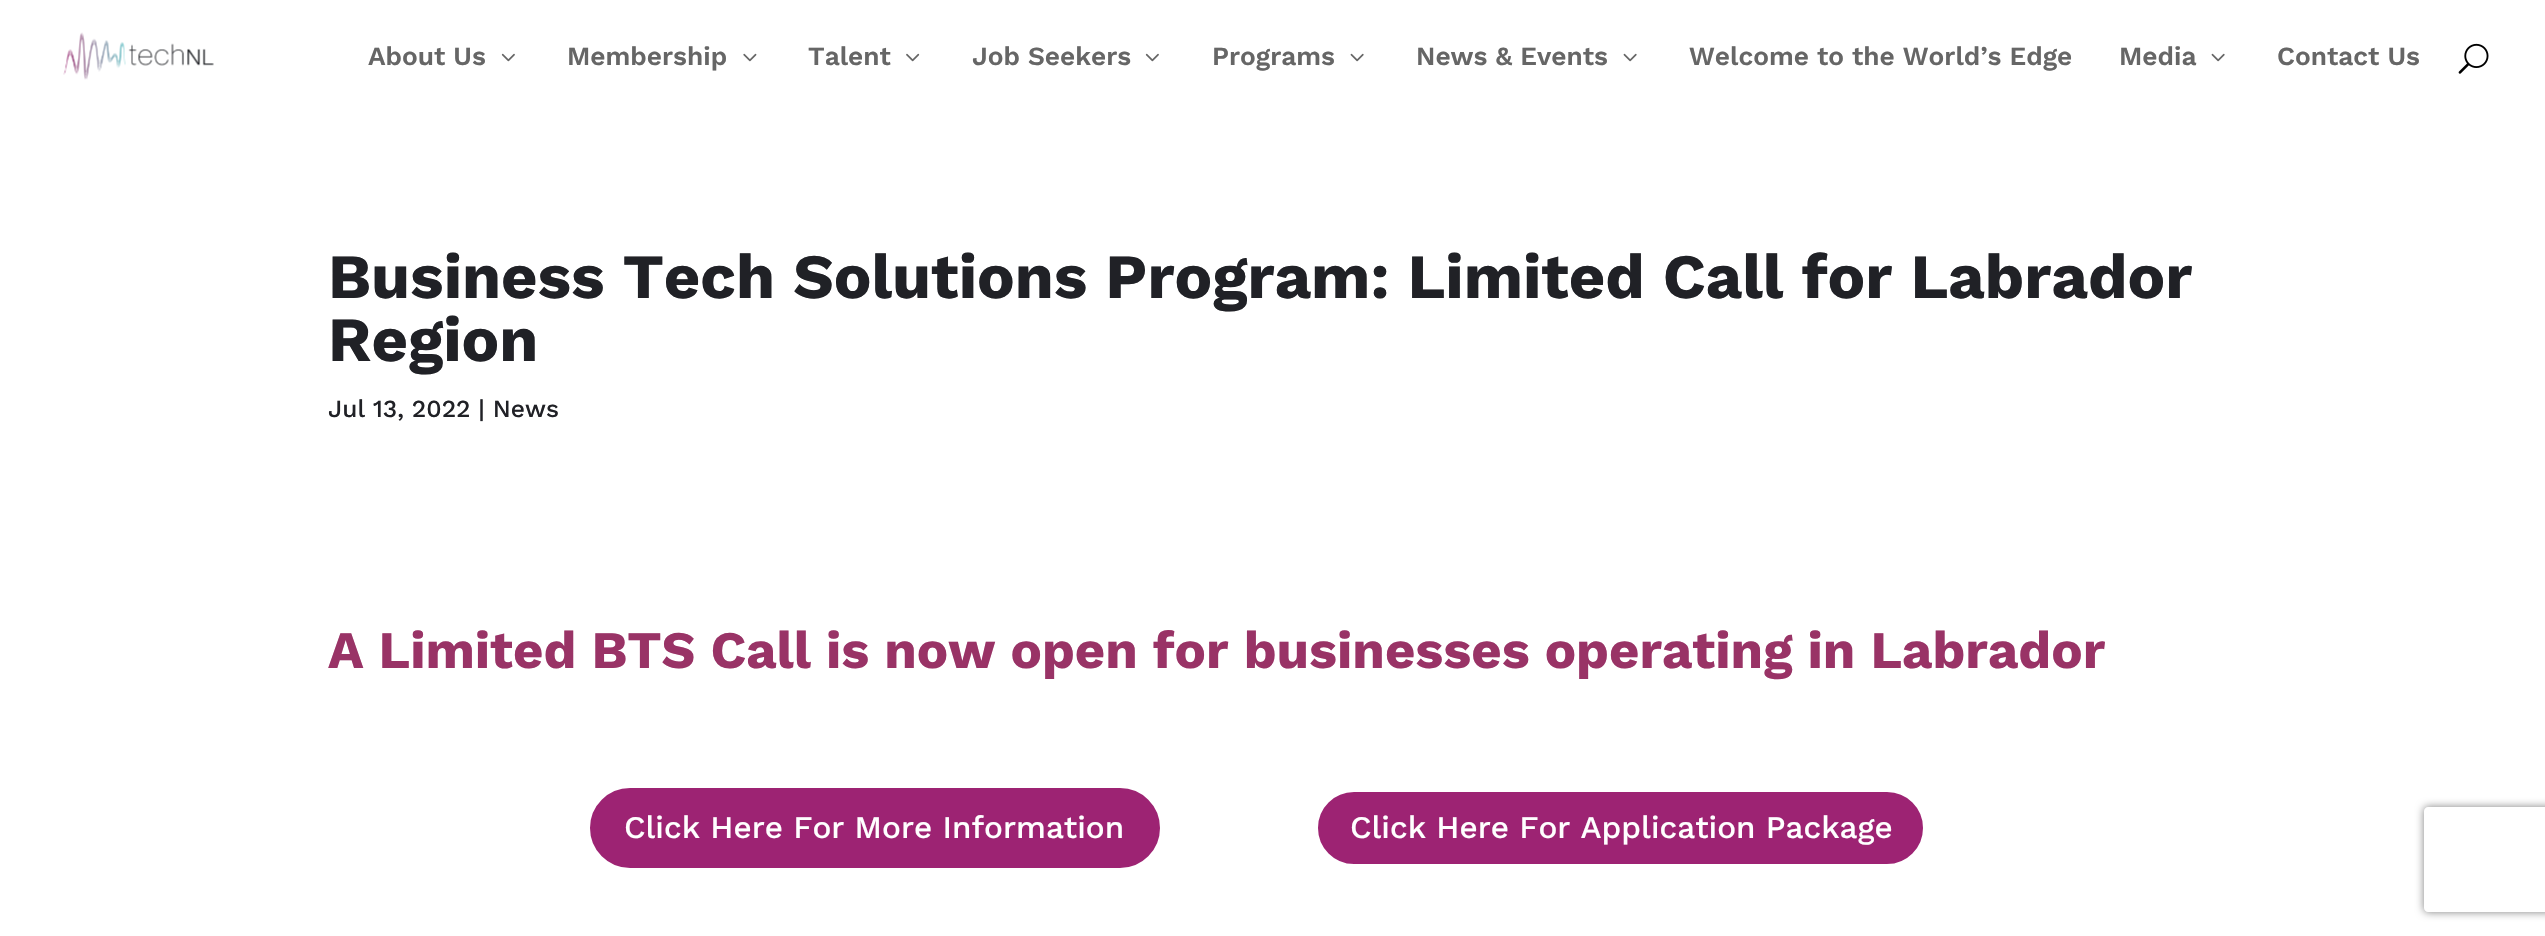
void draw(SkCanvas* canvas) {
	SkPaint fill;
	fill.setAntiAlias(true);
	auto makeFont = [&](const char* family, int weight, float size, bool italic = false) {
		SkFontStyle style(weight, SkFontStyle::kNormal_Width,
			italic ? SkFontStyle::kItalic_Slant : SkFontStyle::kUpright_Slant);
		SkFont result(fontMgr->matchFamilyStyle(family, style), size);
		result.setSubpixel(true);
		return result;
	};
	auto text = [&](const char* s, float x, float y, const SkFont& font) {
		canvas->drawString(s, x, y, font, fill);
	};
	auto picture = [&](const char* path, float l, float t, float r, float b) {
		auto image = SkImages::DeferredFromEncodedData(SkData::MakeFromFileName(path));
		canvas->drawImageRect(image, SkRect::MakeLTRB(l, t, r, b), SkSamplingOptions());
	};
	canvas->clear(0xFFFFFFFF);
	picture("image0.png", 63, 32, 214, 80);
	picture("image1.png", 501, 53, 515, 62);
	picture("image2.png", 743, 53, 757, 62);
	picture("image3.png", 906, 53, 920, 62);
	picture("image1.png", 1145, 53, 1159, 62);
	picture("image4.png", 1350, 53, 1364, 62);
	picture("image4.png", 1623, 53, 1637, 62);
	picture("image4.png", 2211, 53, 2225, 62);
	picture("image5.png", 2458, 43, 2489, 74);
	fill.setColor(0xFF9D2373);
	canvas->drawRoundRect(SkRect::MakeLTRB(592, 790, 1158, 866), 38, 38, fill);
	fill.setStyle(SkPaint::kStroke_Style);
	fill.setStrokeWidth(4);
	canvas->drawRoundRect(SkRect::MakeLTRB(592, 790, 1158, 866), 38, 38, fill);
	fill.setStyle(SkPaint::kFill_Style);
	canvas->drawRoundRect(SkRect::MakeLTRB(1316, 790, 1925, 866), 38, 38, fill);
	fill.setStyle(SkPaint::kStroke_Style);
	fill.setColor(0xFFFFFFFF);
	canvas->drawRoundRect(SkRect::MakeLTRB(1316, 790, 1925, 866), 38, 38, fill);
	canvas->save();
	canvas->clipPath(SkPathBuilder(SkPathFillType::kEvenOdd).moveTo(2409, 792).lineTo(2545, 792).lineTo(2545, 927).lineTo(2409, 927).close().moveTo(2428, 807).lineTo(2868, 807).cubicTo(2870, 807, 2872, 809, 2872, 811).lineTo(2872, 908).cubicTo(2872, 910, 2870, 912, 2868, 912).lineTo(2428, 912).cubicTo(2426, 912, 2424, 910, 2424, 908).lineTo(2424, 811).cubicTo(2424, 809, 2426, 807, 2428, 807).close().detach(), true);
	fill.setStyle(SkPaint::kFill_Style);
	fill.setColor(0xFF808080);
	fill.setMaskFilter(SkMaskFilter::MakeBlur(kNormal_SkBlurStyle, 4.5f));
	canvas->drawRoundRect(SkRect::MakeLTRB(2424, 807, 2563, 912), 4, 4, fill);
	fill.setMaskFilter(nullptr);
	canvas->restore();
	auto font1 = makeFont("Work Sans", 600, 26.25f);
	fill.setColor(0xFF666666);
	text("About Us", 368, 65, font1);
	text("Membership", 567, 65, font1);
	text("Talent", 808, 65, font1);
	text("Job Seekers", 972, 65, font1);
	text("Programs", 1212, 65, font1);
	text("News & Events", 1416, 65, font1);
	text("Welcome to the World’s Edge", 1689, 65, font1);
	text("Media", 2119, 65, font1);
	text("Contact Us", 2277, 65, font1);
	auto font2 = makeFont("Work Sans", 700, 63);
	fill.setColor(0xFF202126);
	text("Business Tech Solutions Program: Limited Call for Labrador", 328, 298, font2);
	text("Region", 328, 361, font2);
	auto font3 = makeFont("Work Sans", 500, 24.5f);
	text("Jul 13, 2022 | News", 328, 417, font3);
	auto font4 = makeFont("Work Sans", 700, 52.5f);
	fill.setColor(0xFF993366);
	text("A Limited BTS Call is now open for businesses operating in Labrador", 328, 668, font4);
	auto font5 = makeFont("Work Sans", 500, 31.5f);
	fill.setColor(0xFFFFFFFF);
	text("Click Here For More Information", 624, 838, font5);
	text("Click Here For Application Package", 1350, 838, font5);
}
